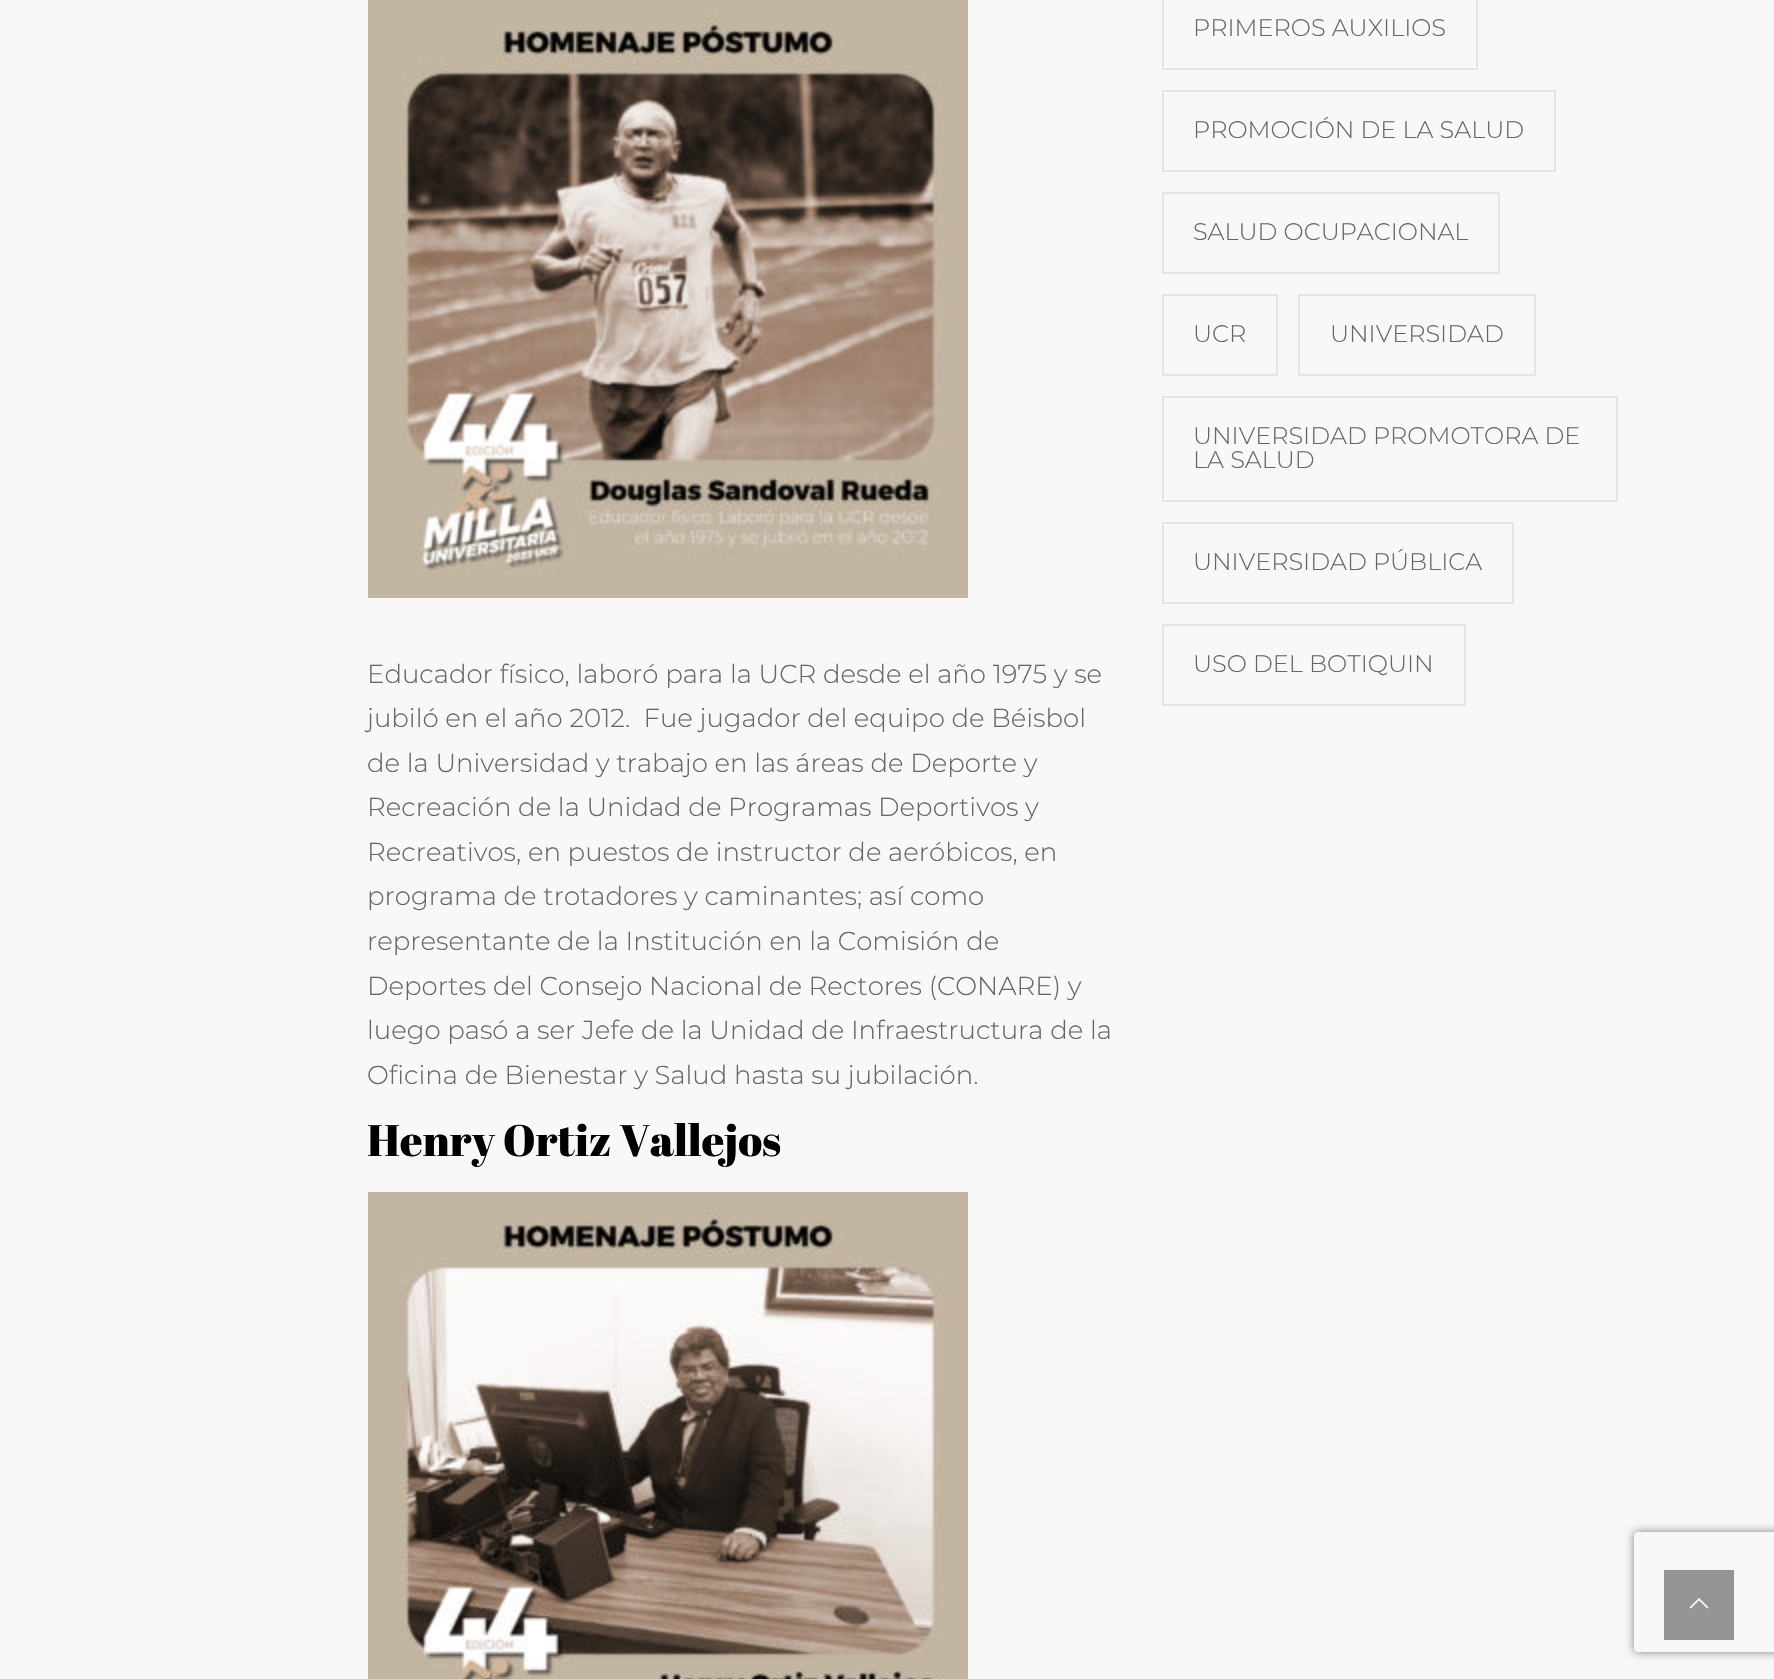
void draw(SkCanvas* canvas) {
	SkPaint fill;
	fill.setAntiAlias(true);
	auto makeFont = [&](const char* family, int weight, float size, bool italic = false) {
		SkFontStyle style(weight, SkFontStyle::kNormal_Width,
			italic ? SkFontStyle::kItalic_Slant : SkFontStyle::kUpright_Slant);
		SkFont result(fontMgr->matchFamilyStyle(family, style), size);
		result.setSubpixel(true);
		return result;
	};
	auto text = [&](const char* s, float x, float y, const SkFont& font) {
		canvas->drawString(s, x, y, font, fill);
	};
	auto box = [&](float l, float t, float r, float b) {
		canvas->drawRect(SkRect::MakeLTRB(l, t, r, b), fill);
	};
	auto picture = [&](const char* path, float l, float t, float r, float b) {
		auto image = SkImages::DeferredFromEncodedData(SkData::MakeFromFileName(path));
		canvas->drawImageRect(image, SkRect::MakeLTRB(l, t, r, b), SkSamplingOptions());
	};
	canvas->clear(0xFFF8F8F8);
	fill.setStyle(SkPaint::kStroke_Style);
	fill.setStrokeWidth(2);
	fill.setColor(0xFFE5E5E5);
	canvas->drawRect(SkRect::MakeLTRB(1163, -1, 1477, 69), fill);
	canvas->drawRect(SkRect::MakeLTRB(1163, 91, 1555, 171), fill);
	canvas->drawRect(SkRect::MakeLTRB(1163, 193, 1499, 273), fill);
	canvas->drawRect(SkRect::MakeLTRB(1163, 295, 1277, 375), fill);
	canvas->drawRect(SkRect::MakeLTRB(1299, 295, 1535, 375), fill);
	canvas->drawRect(SkRect::MakeLTRB(1163, 397, 1617, 501), fill);
	canvas->drawRect(SkRect::MakeLTRB(1163, 523, 1513, 603), fill);
	canvas->drawRect(SkRect::MakeLTRB(1163, 625, 1465, 705), fill);
	picture("image0.png", 368, 0, 968, 598);
	picture("image1.png", 368, 1192, 968, 1679);
	canvas->save();
	canvas->clipPath(SkPathBuilder(SkPathFillType::kEvenOdd).moveTo(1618, 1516).lineTo(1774, 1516).lineTo(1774, 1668).lineTo(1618, 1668).close().moveTo(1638, 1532).lineTo(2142, 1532).cubicTo(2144, 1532, 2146, 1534, 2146, 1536).lineTo(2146, 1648).cubicTo(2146, 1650, 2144, 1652, 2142, 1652).lineTo(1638, 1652).cubicTo(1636, 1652, 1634, 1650, 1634, 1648).lineTo(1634, 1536).cubicTo(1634, 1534, 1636, 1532, 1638, 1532).close().detach(), true);
	fill.setStyle(SkPaint::kFill_Style);
	fill.setColor(0xFF808080);
	fill.setMaskFilter(SkMaskFilter::MakeBlur(kNormal_SkBlurStyle, 5));
	canvas->drawRoundRect(SkRect::MakeLTRB(1634, 1532, 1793, 1652), 4, 4, fill);
	fill.setMaskFilter(nullptr);
	canvas->restore();
	fill.setColor(0xFF959595);
	box(1664, 1570, 1734, 1640);
	picture("image2.png", 1689, 1598, 1709, 1609);
	auto font1 = makeFont("Montserrat", 100, 24);
	fill.setColor(0xFF666666);
	text("PRIMEROS AUXILIOS", 1193, 36, font1);
	text("PROMOCIÓN DE LA SALUD", 1193, 138, font1);
	text("SALUD OCUPACIONAL", 1193, 240, font1);
	text("UCR", 1193, 342, font1);
	text("UNIVERSIDAD", 1330, 342, font1);
	text("UNIVERSIDAD PROMOTORA DE", 1193, 444, font1);
	text("LA SALUD", 1193, 468, font1);
	text("UNIVERSIDAD PÚBLICA", 1193, 570, font1);
	text("USO DEL BOTIQUIN", 1193, 672, font1);
	auto font2 = makeFont("Montserrat", 100, 26);
	text("Educador físico, laboró para la UCR desde el año 1975 y se", 367, 683, font2);
	text("jubiló en el año 2012.  Fue jugador del equipo de Béisbol", 367, 727, font2);
	text("de la Universidad y trabajo en las áreas de Deporte y", 367, 772, font2);
	text("Recreación de la Unidad de Programas Deportivos y", 367, 816, font2);
	text("Recreativos, en puestos de instructor de aeróbicos, en", 367, 861, font2);
	text("programa de trotadores y caminantes; así como", 367, 905, font2);
	text("representante de la Institución en la Comisión de", 367, 950, font2);
	text("Deportes del Consejo Nacional de Rectores (CONARE) y", 367, 995, font2);
	text("luego pasó a ser Jefe de la Unidad de Infraestructura de la", 367, 1039, font2);
	text("Oficina de Bienestar y Salud hasta su jubilación.", 367, 1084, font2);
	auto font3 = makeFont("Abril Fatface", 400, 44);
	fill.setColor(0xFF000000);
	text("Henry Ortiz Vallejos", 367, 1156, font3);
}
